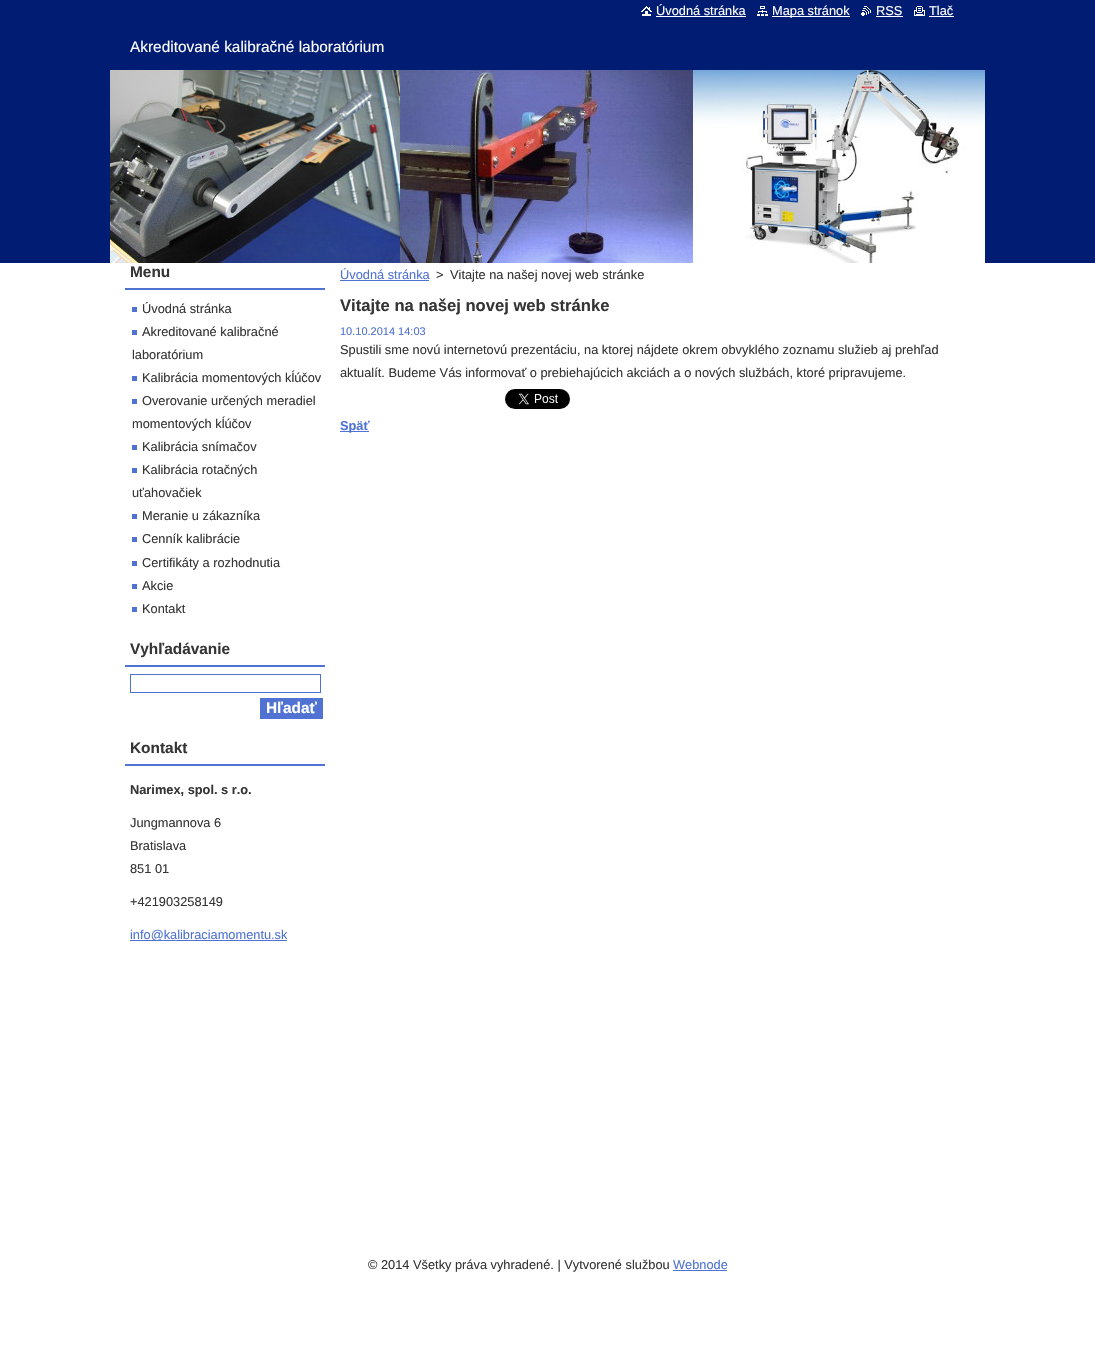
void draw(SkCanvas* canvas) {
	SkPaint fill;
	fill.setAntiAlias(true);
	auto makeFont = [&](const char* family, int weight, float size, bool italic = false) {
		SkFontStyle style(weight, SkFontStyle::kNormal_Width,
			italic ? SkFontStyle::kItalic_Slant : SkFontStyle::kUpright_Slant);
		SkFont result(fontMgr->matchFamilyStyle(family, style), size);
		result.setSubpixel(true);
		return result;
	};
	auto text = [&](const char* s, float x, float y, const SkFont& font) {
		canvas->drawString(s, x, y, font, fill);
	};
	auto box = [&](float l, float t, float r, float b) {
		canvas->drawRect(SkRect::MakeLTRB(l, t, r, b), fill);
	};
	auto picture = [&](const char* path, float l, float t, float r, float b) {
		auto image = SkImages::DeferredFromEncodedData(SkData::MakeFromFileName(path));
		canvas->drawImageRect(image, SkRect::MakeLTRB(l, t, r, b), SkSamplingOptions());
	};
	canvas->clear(0xFFFFFFFF);
	fill.setColor(0xFF011C73);
	box(0, 0, 1095, 263);
	picture("image0.png", 641, 6, 652, 16);
	fill.setColor(0xFFFFFFFF);
	box(656, 16, 746, 17);
	picture("image1.png", 757, 6, 768, 16);
	box(772, 16, 850, 17);
	picture("image2.png", 861, 6, 871, 16);
	box(876, 16, 903, 17);
	picture("image3.png", 914, 6, 925, 16);
	box(929, 16, 954, 17);
	picture("image4.png", 110, 70, 985, 263);
	fill.setColor(0xFF4F72D3);
	box(125, 288, 325, 290);
	fill.setColor(0xFF5072D3);
	box(132, 307, 137, 312);
	box(132, 330, 137, 335);
	box(132, 376, 137, 381);
	box(132, 399, 137, 404);
	box(132, 445, 137, 450);
	box(132, 468, 137, 473);
	box(132, 514, 137, 519);
	box(132, 537, 137, 542);
	box(132, 561, 137, 566);
	box(132, 584, 137, 589);
	box(132, 607, 137, 612);
	fill.setColor(0xFF4F72D3);
	box(125, 665, 325, 667);
	fill.setStyle(SkPaint::kStroke_Style);
	fill.setStrokeWidth(1);
	canvas->drawRect(SkRect::MakeLTRB(130.5f, 674.5f, 320.5f, 692.5f), fill);
	fill.setStyle(SkPaint::kFill_Style);
	box(260, 698, 323, 719);
	box(125, 764, 325, 766);
	box(130, 940, 280, 941);
	box(280, 940, 287, 941);
	box(340, 280, 429, 281);
	picture("image5.png", 505, 389, 570, 409);
	box(340, 431, 369, 432);
	box(673, 1270, 727, 1271);
	auto font1 = makeFont("Liberation Sans", 400, 12.8f);
	fill.setColor(0xFFFFFFFF);
	text("Úvodná stránka", 656, 15, font1);
	text("Mapa stránok", 772, 15, font1);
	text("RSS", 876, 15, font1);
	text("Tlač", 929, 15, font1);
	auto font2 = makeFont("Liberation Sans", 400, 15.4f);
	text("Akreditované kalibračné laboratórium", 130, 52, font2);
	auto font3 = makeFont("Liberation Sans", 700, 15.4f);
	fill.setColor(0xFF353535);
	text("Menu", 130, 277, font3);
	text("Úvodná stránka", 142, 313, font1);
	text("Akreditované kalibračné", 142, 336, font1);
	text("laboratórium", 132, 359, font1);
	text("Kalibrácia momentových kĺúčov", 142, 382, font1);
	text("Overovanie určených meradiel", 142, 405, font1);
	text("momentových kĺúčov", 132, 428, font1);
	text("Kalibrácia snímačov", 142, 451, font1);
	text("Kalibrácia rotačných", 142, 474, font1);
	text("uťahovačiek", 132, 497, font1);
	text("Meranie u zákazníka", 142, 520, font1);
	text("Cenník kalibrácie", 142, 543, font1);
	text("Certifikáty a rozhodnutia", 142, 567, font1);
	text("Akcie", 142, 590, font1);
	text("Kontakt", 142, 613, font1);
	text("Vyhľadávanie", 130, 654, font3);
	fill.setColor(0xFFFFFFFF);
	text("Hľadať", 266, 713, font3);
	fill.setColor(0xFF353535);
	text("Kontakt", 130, 753, font3);
	auto font4 = makeFont("Liberation Sans", 700, 12.8f);
	text("Narimex, spol. s r.o.", 130, 794, font4);
	text("Jungmannova 6", 130, 827, font1);
	text("Bratislava", 130, 850, font1);
	text("851 01", 130, 873, font1);
	text("+421903258149", 130, 906, font1);
	fill.setColor(0xFF4F72D3);
	text("info@kalibraciamomentu.sk", 130, 939, font1);
	text("Úvodná stránka", 340, 279, font1);
	fill.setColor(0xFF353535);
	text(">", 436, 279, font1);
	text("Vitajte na našej novej web stránke", 450, 279, font1);
	auto font5 = makeFont("Liberation Sans", 700, 16.6f);
	text("Vitajte na našej novej web stránke", 340, 311, font5);
	auto font6 = makeFont("Liberation Sans", 400, 11);
	fill.setColor(0xFF4F72D3);
	text("10.10.2014 14:03", 340, 335, font6);
	fill.setColor(0xFF353535);
	text("Spustili sme novú internetovú prezentáciu, na ktorej nájdete okrem obvyklého zoznamu služieb aj prehľad", 340, 354, font1);
	text("aktualít. Budeme Vás informovať o prebiehajúcich akciách a o nových službách, ktoré pripravujeme.", 340, 377, font1);
	fill.setColor(0xFF4F72D3);
	text("Späť", 340, 430, font4);
	fill.setColor(0xFF353535);
	text("© 2014 Všetky práva vyhradené. | Vytvorené službou", 368, 1269, font1);
	fill.setColor(0xFF4F72D3);
	text("Webnode", 673, 1269, font1);
}
